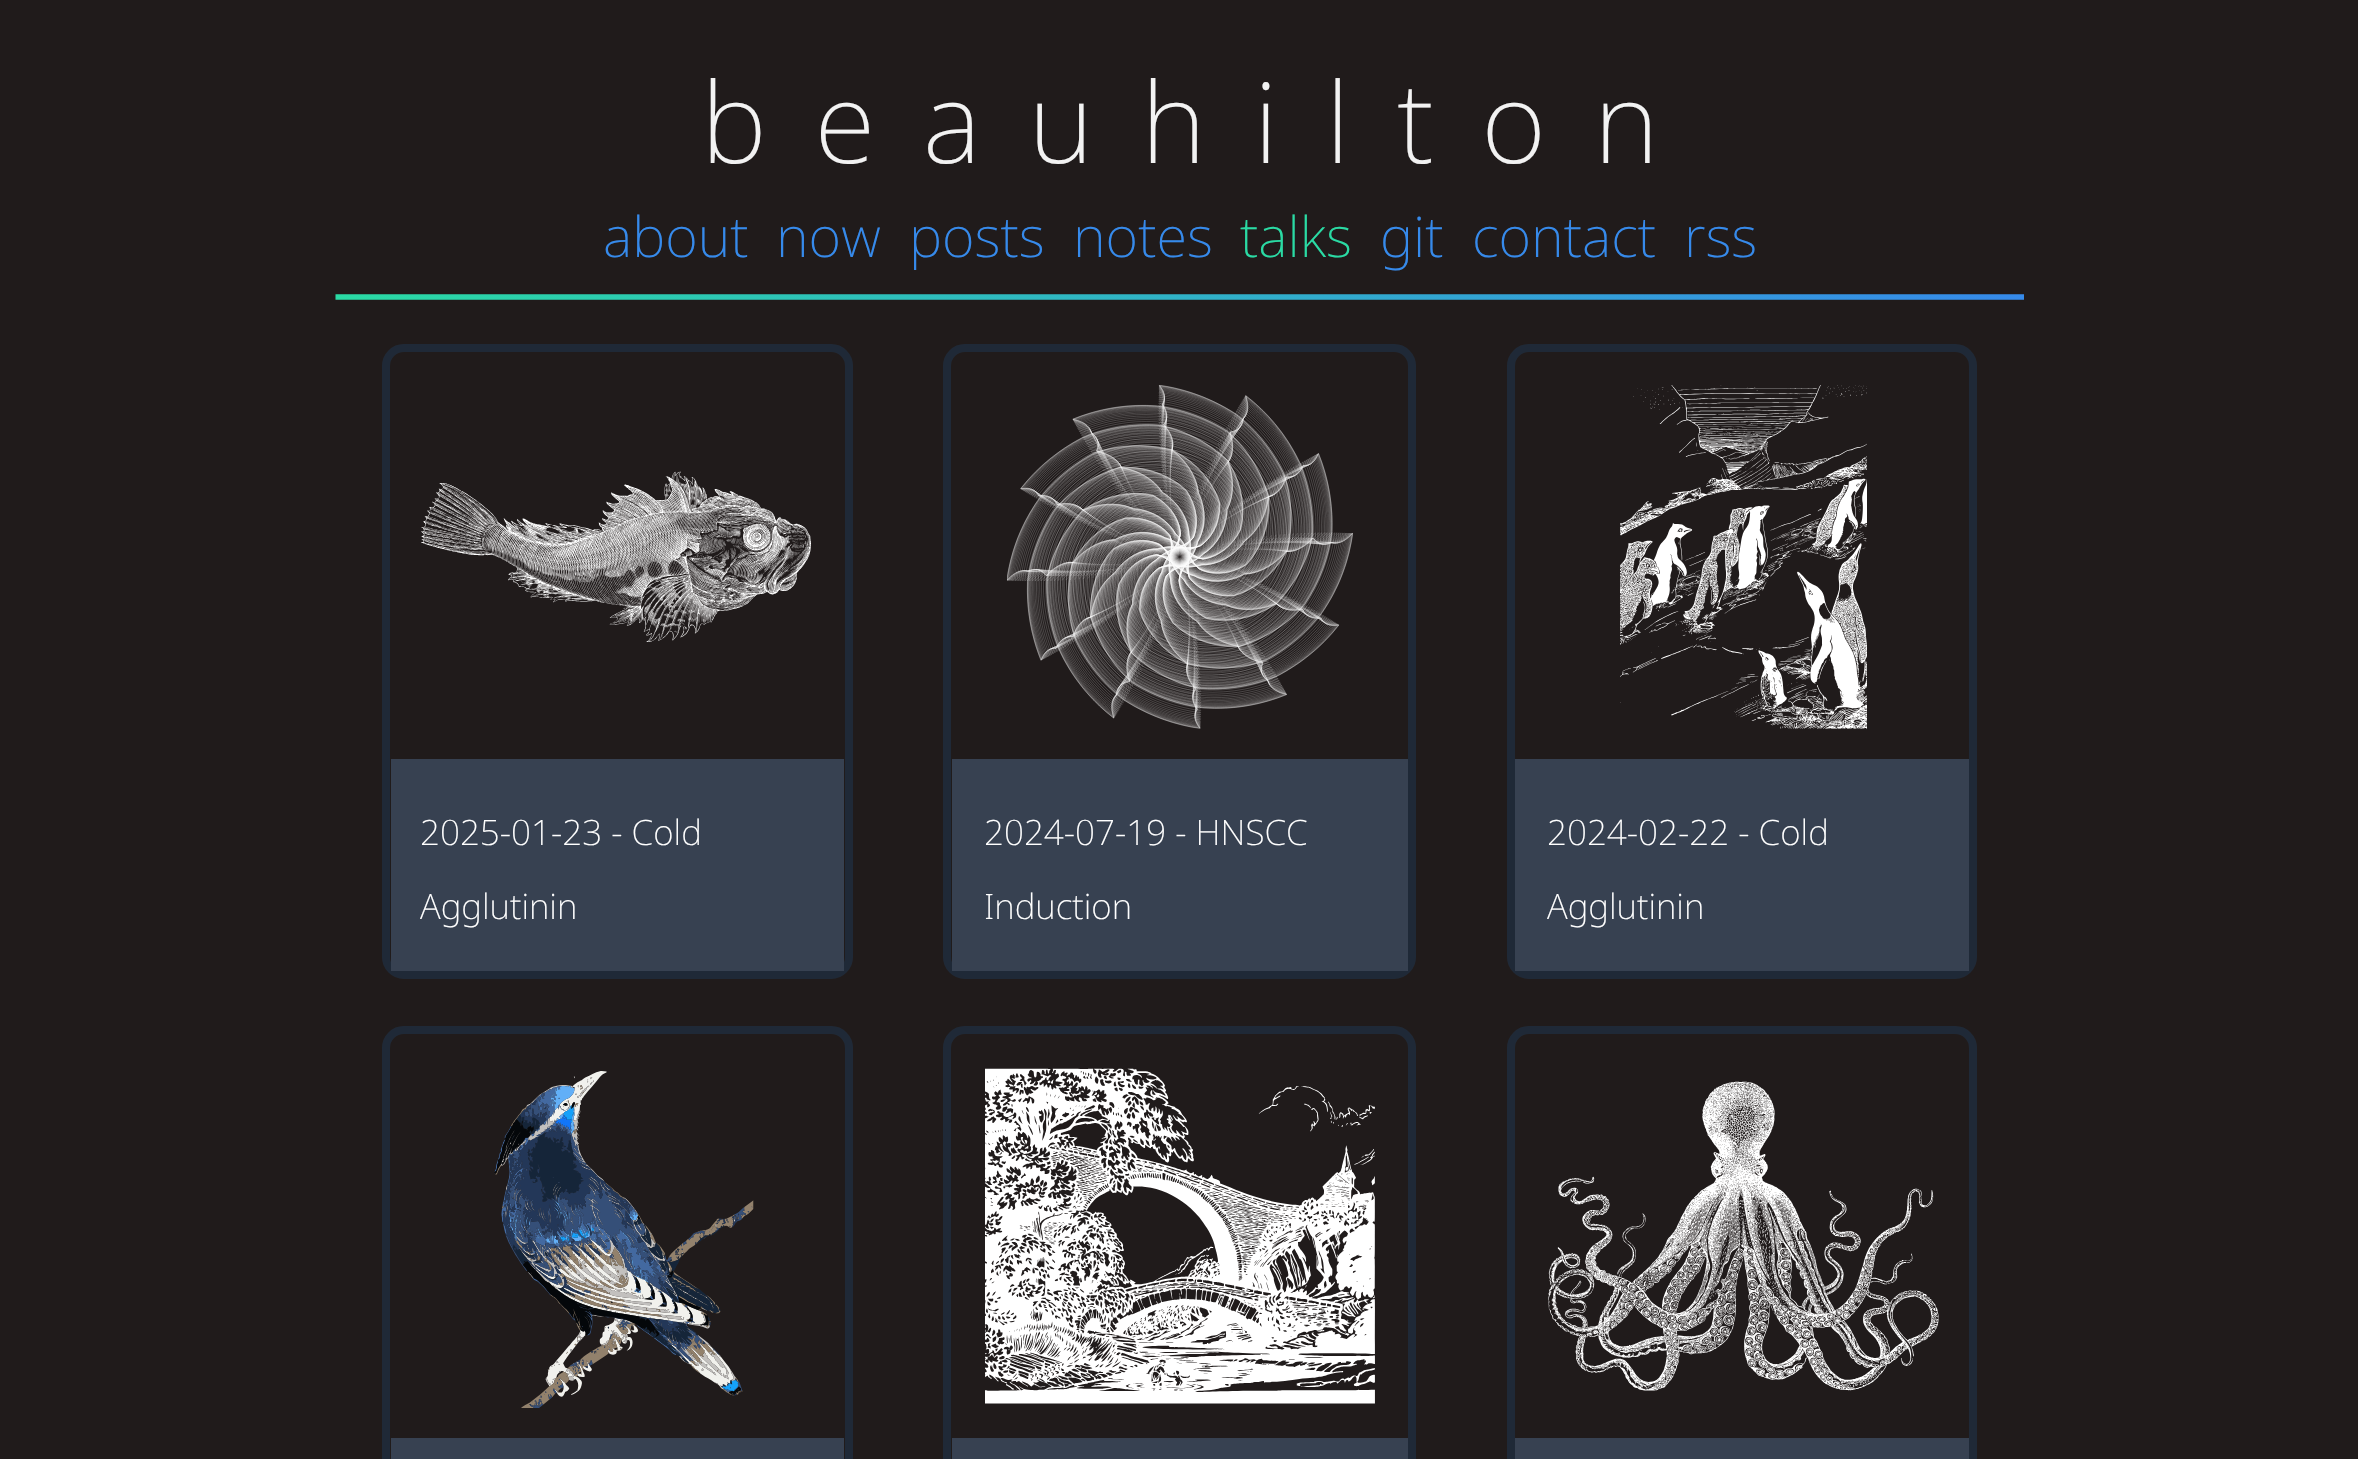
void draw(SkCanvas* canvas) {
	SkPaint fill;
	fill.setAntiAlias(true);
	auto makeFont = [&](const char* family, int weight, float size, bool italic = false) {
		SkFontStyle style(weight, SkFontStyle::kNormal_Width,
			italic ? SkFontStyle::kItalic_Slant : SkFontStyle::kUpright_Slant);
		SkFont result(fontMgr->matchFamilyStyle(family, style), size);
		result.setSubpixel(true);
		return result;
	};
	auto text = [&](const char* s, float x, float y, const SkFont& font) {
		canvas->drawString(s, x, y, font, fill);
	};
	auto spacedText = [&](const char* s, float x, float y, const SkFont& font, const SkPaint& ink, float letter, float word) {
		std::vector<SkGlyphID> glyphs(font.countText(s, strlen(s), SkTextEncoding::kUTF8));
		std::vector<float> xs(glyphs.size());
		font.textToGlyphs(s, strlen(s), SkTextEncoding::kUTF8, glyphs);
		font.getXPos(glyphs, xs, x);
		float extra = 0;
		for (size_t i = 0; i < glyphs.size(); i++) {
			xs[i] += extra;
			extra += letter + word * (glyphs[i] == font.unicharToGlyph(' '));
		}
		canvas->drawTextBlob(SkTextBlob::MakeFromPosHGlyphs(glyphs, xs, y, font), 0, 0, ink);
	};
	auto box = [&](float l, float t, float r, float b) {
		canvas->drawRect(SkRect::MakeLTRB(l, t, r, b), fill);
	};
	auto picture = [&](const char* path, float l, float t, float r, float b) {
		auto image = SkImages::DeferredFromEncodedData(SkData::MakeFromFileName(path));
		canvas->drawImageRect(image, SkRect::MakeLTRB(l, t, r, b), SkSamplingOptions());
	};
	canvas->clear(0xFF201B1B);
	picture("image0.png", 335, 294, 2024, 300);
	fill.setStyle(SkPaint::kStroke_Style);
	fill.setStrokeWidth(8);
	fill.setColor(0xFF1F2937);
	canvas->drawRoundRect(SkRect::MakeLTRB(386, 348, 849, 975), 18, 18, fill);
	picture("image1.png", 421, 471, 811, 642);
	fill.setStyle(SkPaint::kFill_Style);
	fill.setColor(0xFF374151);
	box(391, 759, 844, 971);
	fill.setStyle(SkPaint::kStroke_Style);
	fill.setColor(0xFF1F2937);
	canvas->drawRoundRect(SkRect::MakeLTRB(947, 348, 1412, 975), 18, 18, fill);
	picture("image2.png", 1007, 385, 1353, 729);
	fill.setStyle(SkPaint::kFill_Style);
	fill.setColor(0xFF374151);
	box(952, 759, 1408, 971);
	fill.setStyle(SkPaint::kStroke_Style);
	fill.setColor(0xFF1F2937);
	canvas->drawRoundRect(SkRect::MakeLTRB(1511, 348, 1973, 975), 18, 18, fill);
	picture("image3.png", 1620, 385, 1867, 729);
	fill.setStyle(SkPaint::kFill_Style);
	fill.setColor(0xFF374151);
	box(1515, 759, 1969, 971);
	fill.setStyle(SkPaint::kStroke_Style);
	fill.setColor(0xFF1F2937);
	canvas->drawRoundRect(SkRect::MakeLTRB(386, 1030, 849, 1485), 18, 18, fill);
	picture("image4.png", 494, 1071, 754, 1408);
	fill.setStyle(SkPaint::kFill_Style);
	fill.setColor(0xFF374151);
	box(391, 1438, 844, 1459);
	fill.setStyle(SkPaint::kStroke_Style);
	fill.setColor(0xFF1F2937);
	canvas->drawRoundRect(SkRect::MakeLTRB(947, 1030, 1412, 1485), 18, 18, fill);
	picture("image5.png", 985, 1068, 1375, 1404);
	fill.setStyle(SkPaint::kFill_Style);
	fill.setColor(0xFF374151);
	box(952, 1438, 1408, 1459);
	fill.setStyle(SkPaint::kStroke_Style);
	fill.setColor(0xFF1F2937);
	canvas->drawRoundRect(SkRect::MakeLTRB(1511, 1030, 1973, 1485), 18, 18, fill);
	picture("image6.png", 1548, 1081, 1939, 1391);
	fill.setStyle(SkPaint::kFill_Style);
	fill.setColor(0xFF374151);
	box(1515, 1438, 1969, 1459);
	auto font1 = makeFont("Noto Sans", 200, 111.75f);
	fill.setColor(0xFFF2F2F2);
	spacedText("beauhilton", 701, 163, font1, fill, 47.5f, 0);
	auto font2 = makeFont("Noto Sans", 200, 56);
	fill.setColor(0xFF368AEB);
	text("about", 603, 257, font2);
	text("now", 776, 257, font2);
	text("posts", 909, 257, font2);
	text("notes", 1073, 257, font2);
	fill.setColor(0xFF2ADBA4);
	text("talks", 1240, 257, font2);
	fill.setColor(0xFF368AEB);
	text("git", 1380, 257, font2);
	text("contact", 1472, 257, font2);
	text("rss", 1684, 257, font2);
	auto font3 = makeFont("Noto Sans", 200, 35);
	fill.setColor(0xFFFFFFFF);
	text("2025-01-23 - Cold", 420, 845, font3);
	text("Agglutinin", 420, 919, font3);
	text("2024-07-19 - HNSCC", 984, 845, font3);
	text("Induction", 984, 919, font3);
	text("2024-02-22 - Cold", 1547, 845, font3);
	text("Agglutinin", 1547, 919, font3);
}
